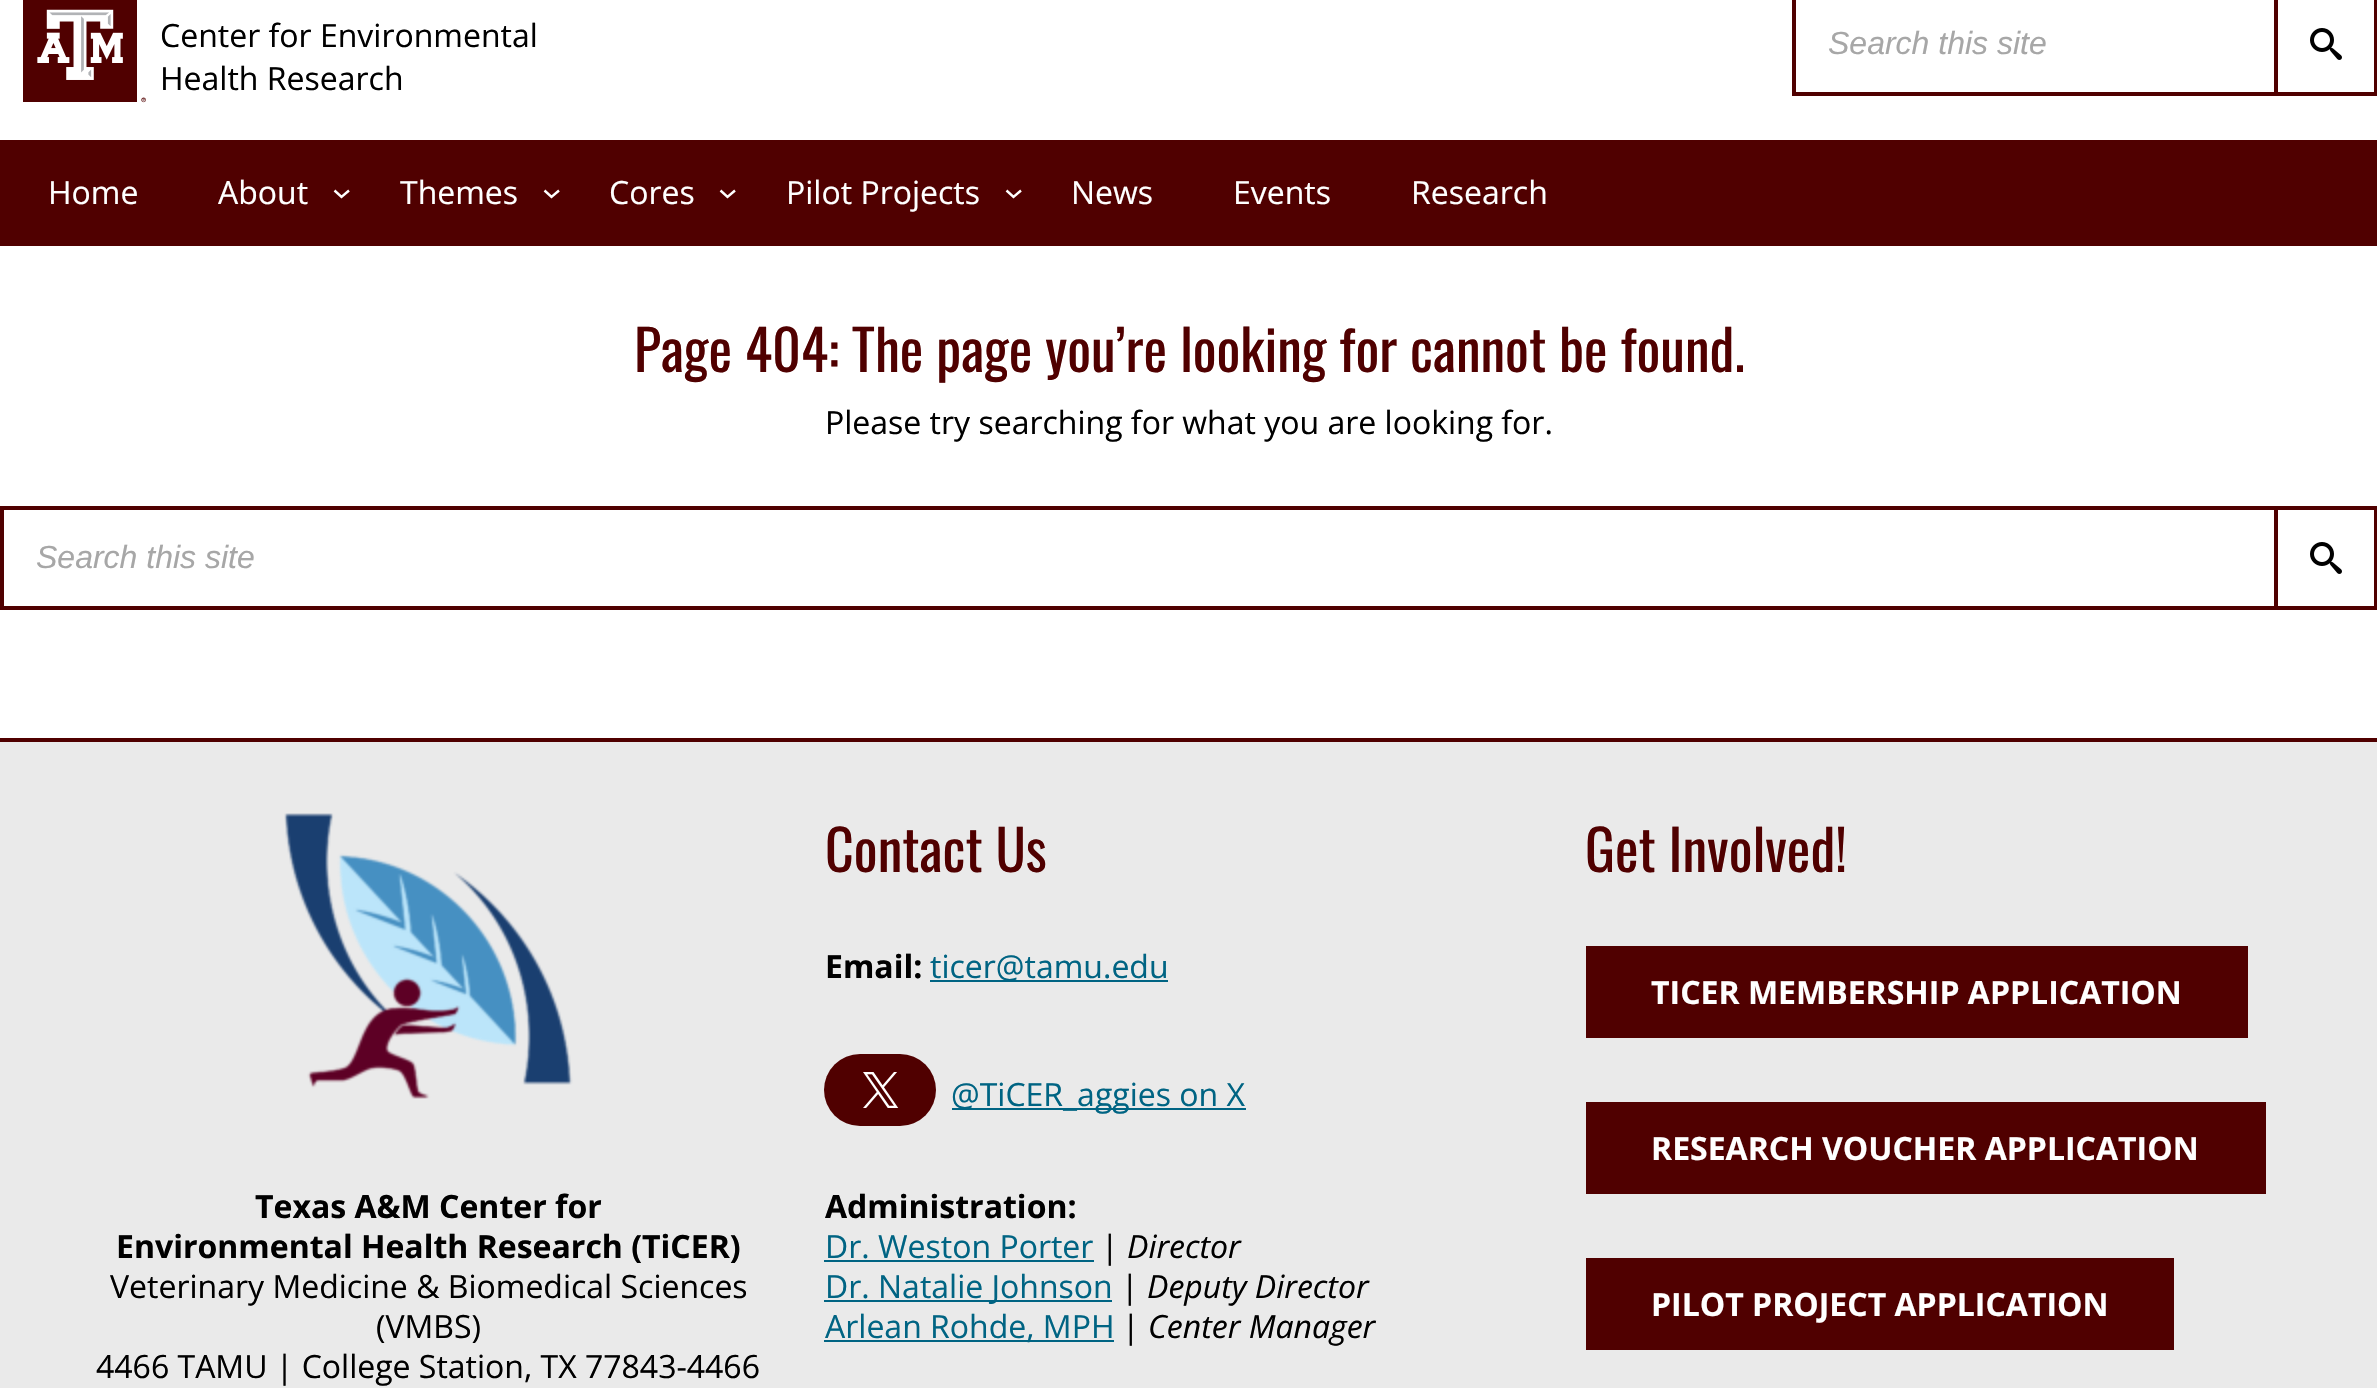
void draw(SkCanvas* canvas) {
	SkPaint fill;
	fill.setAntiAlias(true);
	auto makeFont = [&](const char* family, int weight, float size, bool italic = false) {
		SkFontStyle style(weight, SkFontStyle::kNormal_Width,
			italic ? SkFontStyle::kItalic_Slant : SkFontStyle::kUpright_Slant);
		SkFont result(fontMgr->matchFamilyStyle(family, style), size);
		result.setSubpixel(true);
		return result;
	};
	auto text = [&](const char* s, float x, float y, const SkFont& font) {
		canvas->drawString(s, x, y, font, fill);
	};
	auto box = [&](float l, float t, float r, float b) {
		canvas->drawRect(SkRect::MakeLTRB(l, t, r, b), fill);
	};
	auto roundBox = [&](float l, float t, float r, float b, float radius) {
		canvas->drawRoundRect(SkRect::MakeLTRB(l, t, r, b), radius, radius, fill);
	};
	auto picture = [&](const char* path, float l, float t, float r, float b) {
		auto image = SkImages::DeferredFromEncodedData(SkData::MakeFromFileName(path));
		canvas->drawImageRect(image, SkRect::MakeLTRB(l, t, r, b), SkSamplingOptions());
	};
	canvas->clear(0xFFFFFFFF);
	fill.setColor(0xFF500000);
	box(0, 140, 2377, 246);
	picture("image0.png", 23, 0, 146, 103);
	fill.setStyle(SkPaint::kStroke_Style);
	fill.setStrokeWidth(4);
	canvas->drawRect(SkRect::MakeLTRB(1794, -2, 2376, 94), fill);
	fill.setStyle(SkPaint::kFill_Style);
	box(2274, 0, 2278, 92);
	picture("image1.png", 2310, 28, 2342, 60);
	fill.setStyle(SkPaint::kStroke_Style);
	fill.setStrokeWidth(2.4f);
	fill.setColor(0xFFFFFFFF);
	canvas->drawPath(SkPathBuilder().moveTo(334.5f, 190.5f).lineTo(341.5f, 197).lineTo(349, 190.5f).detach(), fill);
	canvas->drawPath(SkPathBuilder().moveTo(544.5f, 190.5f).lineTo(551.5f, 197).lineTo(559, 190.5f).detach(), fill);
	canvas->drawPath(SkPathBuilder().moveTo(720.5f, 190.5f).lineTo(727.5f, 197).lineTo(735, 190.5f).detach(), fill);
	canvas->drawPath(SkPathBuilder().moveTo(1006.5f, 190.5f).lineTo(1013.5f, 197).lineTo(1021, 190.5f).detach(), fill);
	fill.setStrokeWidth(4);
	fill.setColor(0xFF500000);
	canvas->drawRect(SkRect::MakeLTRB(2, 508, 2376, 608), fill);
	fill.setStyle(SkPaint::kFill_Style);
	box(2274, 510, 2278, 606);
	picture("image1.png", 2310, 542, 2342, 574);
	box(0, 738, 2377, 742);
	fill.setColor(0xFFEAEAEA);
	box(0, 742, 2377, 1388);
	picture("image2.png", 284, 813, 573, 1099);
	fill.setColor(0xFF006483);
	box(930, 980, 1168, 982);
	fill.setColor(0xFF500000);
	roundBox(824, 1054, 936, 1126, 36);
	picture("image3.png", 863, 1072, 899, 1108);
	fill.setColor(0xFF006483);
	box(952, 1108, 1246, 1110);
	box(824, 1260, 1094, 1262);
	box(824, 1300, 1112, 1302);
	box(824, 1340, 1114, 1342);
	fill.setColor(0xFF500000);
	box(1586, 946, 2248, 1038);
	box(1586, 1102, 2266, 1194);
	box(1586, 1258, 2174, 1350);
	auto font1 = makeFont("Open Sans", 400, 32);
	fill.setColor(0xFF000000);
	text("Center for Environmental", 160, 47, font1);
	text("Health Research", 160, 90, font1);
	auto font2 = makeFont("Liberation Sans", 400, 32, true);
	fill.setColor(0xFFA7A7A7);
	text("Search this site", 1828, 54, font2);
	fill.setColor(0xFFFFFFFF);
	text("Home", 48, 204, font1);
	text("About", 218, 204, font1);
	text("Themes", 400, 204, font1);
	text("Cores", 609, 204, font1);
	text("Pilot Projects", 786, 204, font1);
	text("News", 1071, 204, font1);
	text("Events", 1233, 204, font1);
	text("Research", 1411, 204, font1);
	auto font3 = makeFont("Oswald", 400, 56);
	fill.setColor(0xFF500000);
	text("Page 404: The page you’re looking for cannot be found.", 634, 372, font3);
	fill.setColor(0xFF000000);
	text("Please try searching for what you are looking for.", 825, 434, font1);
	fill.setColor(0xFFA7A7A7);
	text("Search this site", 36, 568, font2);
	auto font4 = makeFont("Open Sans", 700, 32);
	fill.setColor(0xFF000000);
	text("Texas A&M Center for", 255, 1218, font4);
	text("Environmental Health Research (TiCER)", 116, 1258, font4);
	text("Veterinary Medicine & Biomedical Sciences", 110, 1298, font1);
	text("(VMBS)", 376, 1338, font1);
	text("4466 TAMU | College Station, TX 77843-4466", 96, 1378, font1);
	fill.setColor(0xFF500000);
	text("Contact Us", 825, 872, font3);
	fill.setColor(0xFF000000);
	text("Email:", 825, 978, font4);
	fill.setColor(0xFF006483);
	text("ticer@tamu.edu", 930, 978, font1);
	text("@TiCER_aggies on X", 951, 1106, font1);
	fill.setColor(0xFF000000);
	text("Administration:", 825, 1218, font4);
	fill.setColor(0xFF006483);
	text("Dr. Weston Porter", 825, 1258, font1);
	fill.setColor(0xFF000000);
	text("|", 1101, 1258, font1);
	auto font5 = makeFont("Open Sans", 400, 32, true);
	text("Director", 1127, 1258, font5);
	fill.setColor(0xFF006483);
	text("Dr. Natalie Johnson", 825, 1298, font1);
	fill.setColor(0xFF000000);
	text("|", 1121, 1298, font1);
	text("Deputy Director", 1147, 1298, font5);
	fill.setColor(0xFF006483);
	text("Arlean Rohde, MPH", 825, 1338, font1);
	fill.setColor(0xFF000000);
	text("|", 1122, 1338, font1);
	text("Center Manager", 1148, 1338, font5);
	fill.setColor(0xFF500000);
	text("Get Involved!", 1585, 872, font3);
	fill.setColor(0xFFFFFFFF);
	text("TICER MEMBERSHIP APPLICATION", 1651, 1004, font4);
	text("RESEARCH VOUCHER APPLICATION", 1651, 1160, font4);
	text("PILOT PROJECT APPLICATION", 1651, 1316, font4);
}
